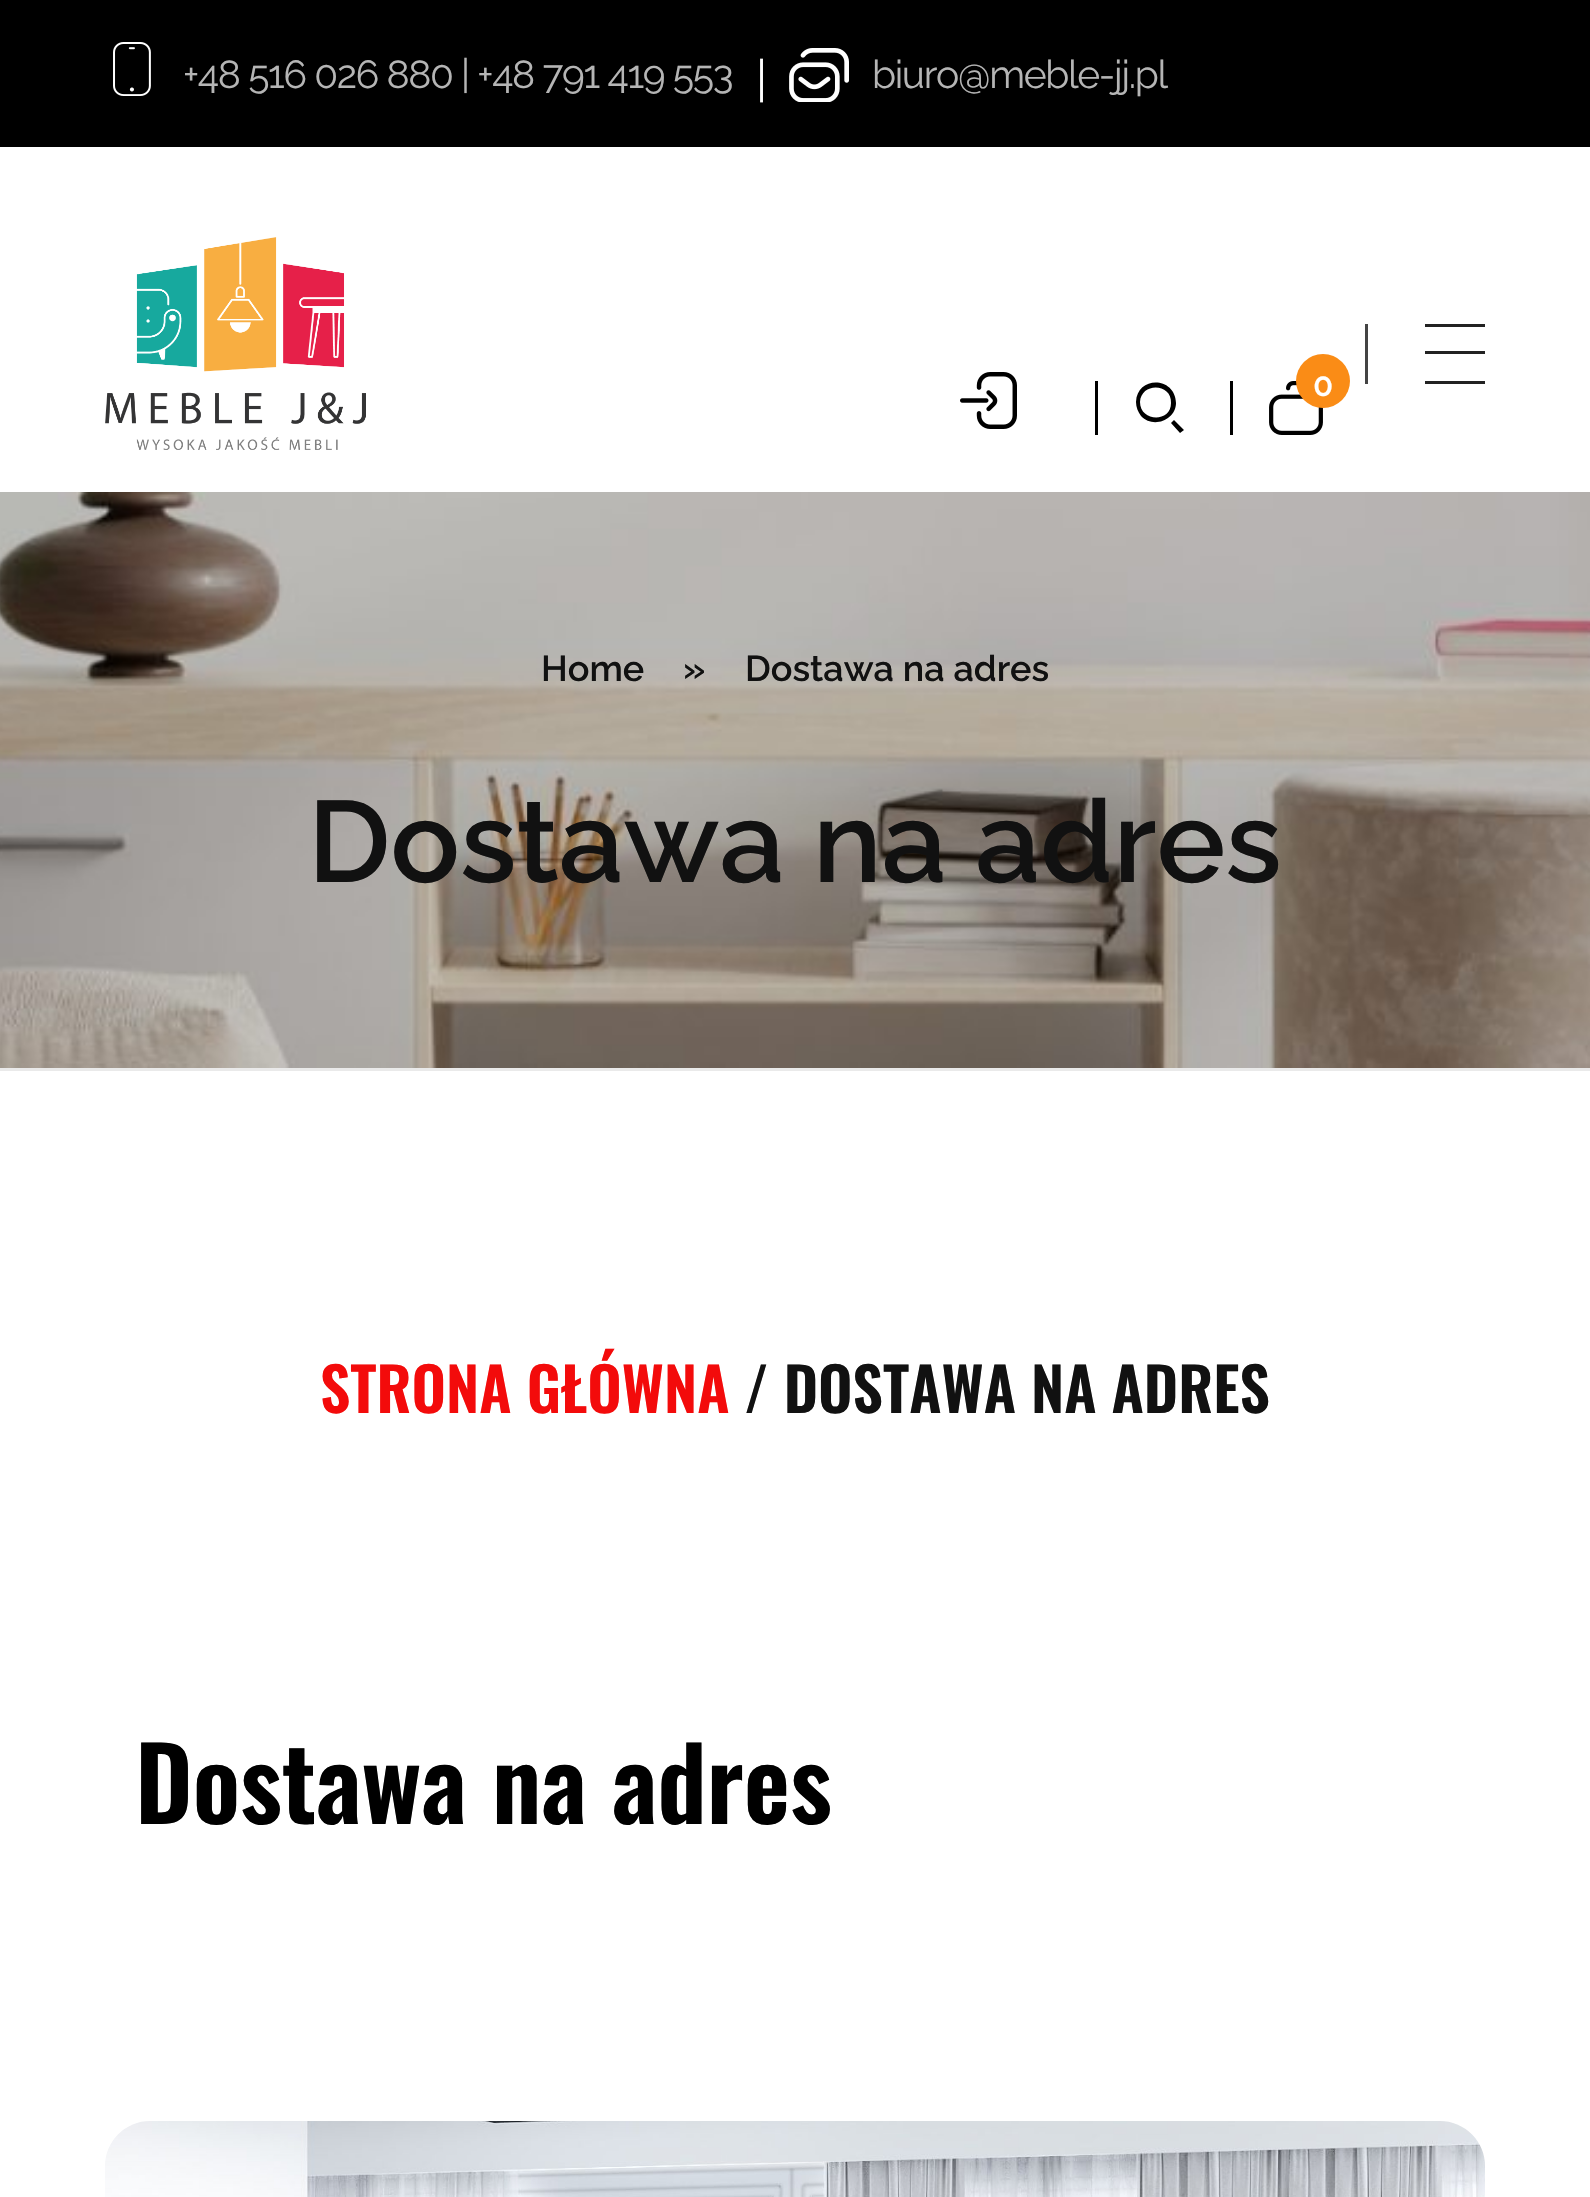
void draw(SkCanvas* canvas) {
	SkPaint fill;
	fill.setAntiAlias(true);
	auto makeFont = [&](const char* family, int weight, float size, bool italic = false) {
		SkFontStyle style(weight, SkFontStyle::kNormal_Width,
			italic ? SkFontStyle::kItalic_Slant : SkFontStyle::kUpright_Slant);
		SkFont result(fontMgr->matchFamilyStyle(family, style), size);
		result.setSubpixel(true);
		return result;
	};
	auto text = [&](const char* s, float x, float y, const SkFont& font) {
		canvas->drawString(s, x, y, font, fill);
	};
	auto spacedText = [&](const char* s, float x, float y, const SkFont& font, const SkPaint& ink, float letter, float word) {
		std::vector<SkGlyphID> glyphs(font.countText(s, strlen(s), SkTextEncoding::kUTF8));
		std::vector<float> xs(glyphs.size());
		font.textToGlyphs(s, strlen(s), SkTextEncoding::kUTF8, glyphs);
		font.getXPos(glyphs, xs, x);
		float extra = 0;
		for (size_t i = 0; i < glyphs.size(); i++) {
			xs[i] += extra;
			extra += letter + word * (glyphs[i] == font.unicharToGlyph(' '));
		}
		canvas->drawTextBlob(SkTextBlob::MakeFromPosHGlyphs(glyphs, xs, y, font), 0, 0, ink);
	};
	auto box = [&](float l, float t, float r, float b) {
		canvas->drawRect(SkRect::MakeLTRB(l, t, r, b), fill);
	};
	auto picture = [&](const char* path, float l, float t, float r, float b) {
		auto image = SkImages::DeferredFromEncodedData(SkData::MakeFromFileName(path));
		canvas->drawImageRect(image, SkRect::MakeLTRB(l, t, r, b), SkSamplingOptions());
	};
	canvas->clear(0xFFFFFFFF);
	fill.setColor(0xFF000000);
	box(0, 0, 1590, 147);
	picture("image0.png", 113, 42, 151, 96);
	picture("image1.png", 789, 48, 849, 102);
	picture("image2.png", 105, 237, 366, 450);
	fill.setColor(0xFF444444);
	box(1365, 324, 1368, 384);
	fill.setColor(0xFF222222);
	box(1425, 324, 1485, 327);
	box(1425, 351, 1485, 354);
	box(1425, 381, 1485, 384);
	picture("image3.png", 960, 372, 1017, 429);
	fill.setColor(0xFF000000);
	box(1230, 381, 1233, 435);
	box(1095, 381, 1098, 435);
	canvas->drawPath(SkPathBuilder().moveTo(1180, 433).lineTo(1171, 423).lineTo(1174, 420).lineTo(1184, 430).close().moveTo(1136, 402).cubicTo(1137, 376, 1175, 376, 1176, 403).cubicTo(1176, 420, 1153, 429, 1141, 416).cubicTo(1138, 412, 1136, 407, 1136, 402).close().moveTo(1171, 403).cubicTo(1172, 383, 1141, 382, 1140, 402).cubicTo(1140, 422, 1171, 423, 1171, 403).close().detach(), fill);
	picture("image4.png", 1269, 381, 1323, 435);
	fill.setColor(0xFFFA8C16);
	canvas->drawCircle(1323, 381, 27, fill);
	fill.setColor(0xFFEAEAEA);
	box(0, 1068, 1590, 1071);
	picture("image5.png", 0, 492, 1590, 1068);
	picture("image6.png", 105, 2121, 1485, 2197);
	auto font1 = makeFont("Raleway", 400, 39);
	fill.setColor(0xFFB5B5B5);
	spacedText("+48 516 026 880 | +48 791 419 553", 183, 88, font1, fill, -1.35f, 0);
	auto font2 = makeFont("Raleway", 400, 48);
	fill.setColor(0xFFFFFFFF);
	text("|", 756, 96, font2);
	fill.setColor(0xFFB5B5B5);
	spacedText("biuro@meble-jj.pl", 872, 88, font1, fill, -1.35f, 0);
	auto font3 = makeFont("Raleway", 600, 33);
	fill.setColor(0xFFFFFFFF);
	text("0", 1313, 396, font3);
	auto font4 = makeFont("Raleway", 600, 36);
	fill.setColor(0xFF111111);
	text("Home", 541, 681, font4);
	text("»", 683, 681, font4);
	text("Dostawa na adres", 745, 681, font4);
	auto font5 = makeFont("Raleway", 600, 115.25f);
	text("Dostawa na adres", 308, 882, font5);
	auto font6 = makeFont("Oswald", 600, 60);
	fill.setColor(0xFFF30B0B);
	text("STRONA GŁÓWNA", 320, 1413, font6);
	fill.setColor(0xFF111111);
	text("/ DOSTAWA NA ADRES", 744, 1413, font6);
	auto font7 = makeFont("Oswald", 600, 100.75f);
	fill.setColor(0xFF000000);
	text("Dostawa na adres", 135, 1824, font7);
}
